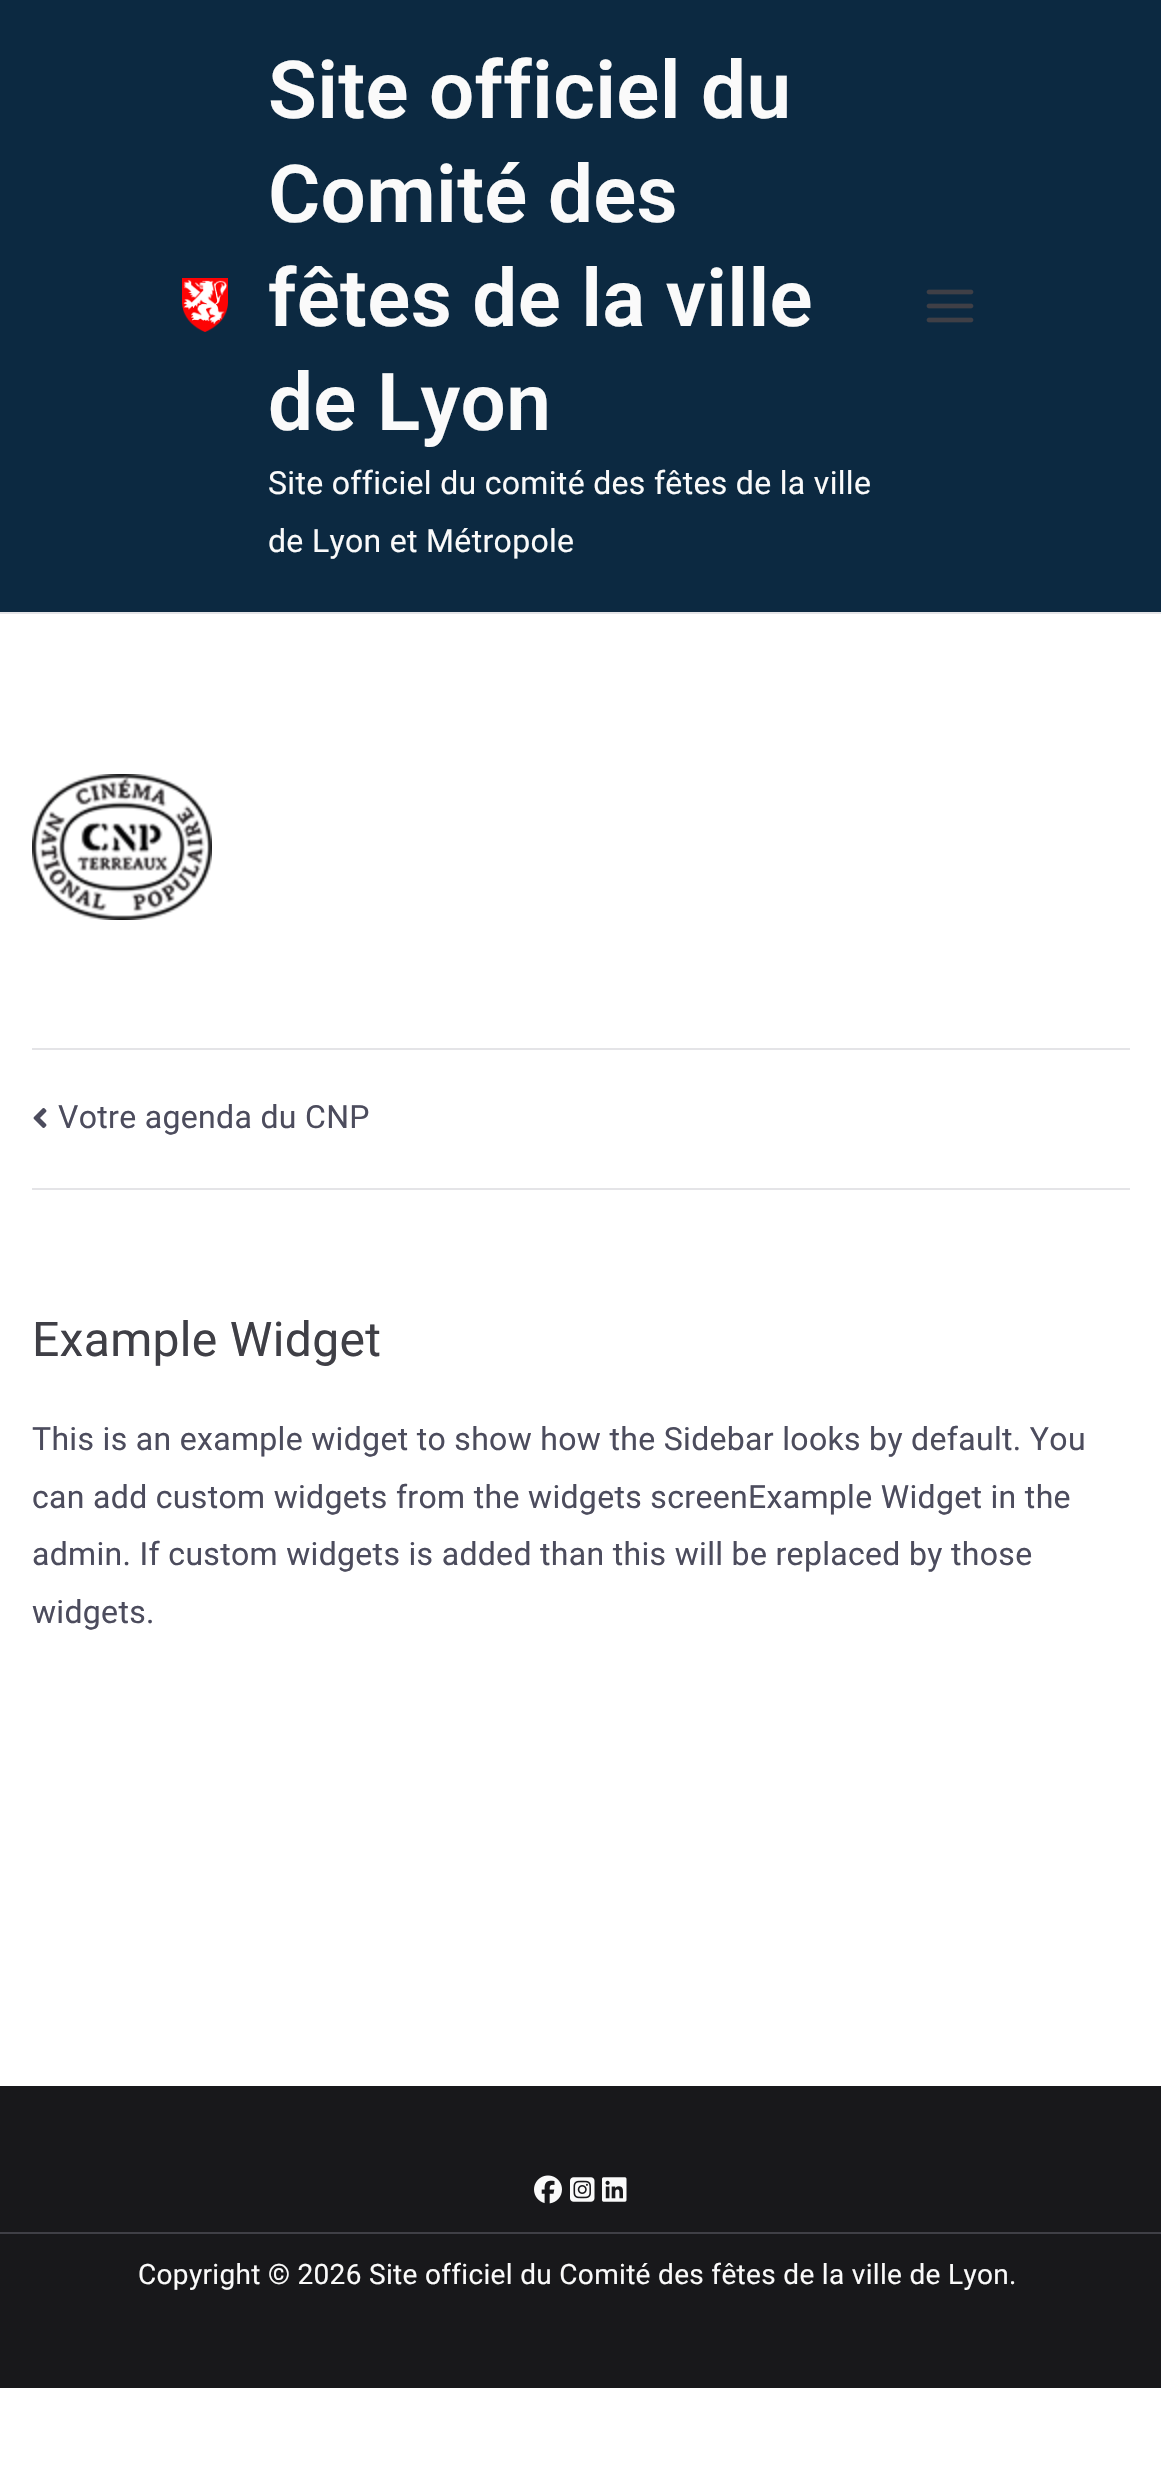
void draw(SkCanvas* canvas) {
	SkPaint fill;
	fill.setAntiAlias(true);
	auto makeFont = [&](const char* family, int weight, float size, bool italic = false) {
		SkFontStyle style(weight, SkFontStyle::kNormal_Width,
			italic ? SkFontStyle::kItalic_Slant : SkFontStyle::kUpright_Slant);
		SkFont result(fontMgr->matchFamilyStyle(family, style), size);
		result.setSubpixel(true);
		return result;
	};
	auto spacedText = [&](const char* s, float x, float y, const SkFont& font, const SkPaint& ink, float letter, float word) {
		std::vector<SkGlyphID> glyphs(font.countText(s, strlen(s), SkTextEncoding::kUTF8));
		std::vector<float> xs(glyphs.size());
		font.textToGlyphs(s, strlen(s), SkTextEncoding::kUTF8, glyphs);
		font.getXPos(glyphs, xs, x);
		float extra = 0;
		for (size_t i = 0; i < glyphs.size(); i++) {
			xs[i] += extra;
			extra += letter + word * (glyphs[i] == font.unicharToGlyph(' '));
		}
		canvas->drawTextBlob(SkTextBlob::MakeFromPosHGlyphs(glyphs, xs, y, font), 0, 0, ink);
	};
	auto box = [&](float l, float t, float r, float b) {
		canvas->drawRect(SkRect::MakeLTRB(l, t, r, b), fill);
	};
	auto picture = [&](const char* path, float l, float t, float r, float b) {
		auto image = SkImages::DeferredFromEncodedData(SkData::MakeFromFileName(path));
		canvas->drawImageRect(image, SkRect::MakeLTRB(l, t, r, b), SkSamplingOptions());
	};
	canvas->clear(0xFFFFFFFF);
	fill.setColor(0xFFE4E4E7);
	box(0, 612, 1161, 614);
	fill.setColor(0xFF0C2941);
	box(0, 0, 1161, 612);
	picture("image0.png", 182, 278, 228, 332);
	picture("image1.png", 926, 289, 974, 323);
	picture("image2.png", 32, 774, 212, 920);
	fill.setColor(0xFFE4E4E7);
	box(32, 1048, 1130, 1050);
	box(32, 1188, 1130, 1190);
	picture("image3.png", 33, 1108, 47, 1128);
	fill.setColor(0xFF18181B);
	box(0, 2086, 1161, 2388);
	picture("image4.png", 534, 2175, 562, 2204);
	picture("image5.png", 570, 2177, 595, 2202);
	picture("image6.png", 602, 2177, 627, 2202);
	fill.setColor(0xFF3F3F46);
	box(0, 2232, 1161, 2234);
	auto font1 = makeFont("Roboto", 600, 80);
	fill.setColor(0xFFFAFAFA);
	spacedText("Site officiel du", 268, 118, font1, fill, 0.32f, 0);
	spacedText("Comité des", 268, 222, font1, fill, 0.32f, 0);
	spacedText("fêtes de la ville", 268, 326, font1, fill, 0.32f, 0);
	spacedText("de Lyon", 268, 430, font1, fill, 0.32f, 0);
	auto font2 = makeFont("Roboto", 400, 32);
	spacedText("Site officiel du comité des fêtes de la ville", 268, 494, font2, fill, 0.32f, 0);
	spacedText("de Lyon et Métropole", 268, 552, font2, fill, 0.32f, 0);
	fill.setColor(0xFF4C4C5D);
	spacedText("Votre agenda du CNP", 58, 1128, font2, fill, 0.32f, 0);
	auto font3 = makeFont("Roboto", 400, 48);
	fill.setColor(0xFF3F3F46);
	spacedText("Example Widget", 32, 1356, font3, fill, 0.32f, 0);
	fill.setColor(0xFF4C4C5D);
	spacedText("This is an example widget to show how the Sidebar looks by default. You", 32, 1450, font2, fill, 0.32f, 0);
	spacedText("can add custom widgets from the widgets screenExample Widget in the", 32, 1508, font2, fill, 0.32f, 0);
	spacedText("admin. If custom widgets is added than this will be replaced by those", 32, 1565, font2, fill, 0.32f, 0);
	spacedText("widgets.", 32, 1623, font2, fill, 0.32f, 0);
	auto font4 = makeFont("Roboto", 400, 28);
	fill.setColor(0xFFFAFAFA);
	spacedText("Copyright © 2026 Site officiel du Comité des fêtes de la ville de Lyon.", 138, 2284, font4, fill, 0.32f, 0);
}
